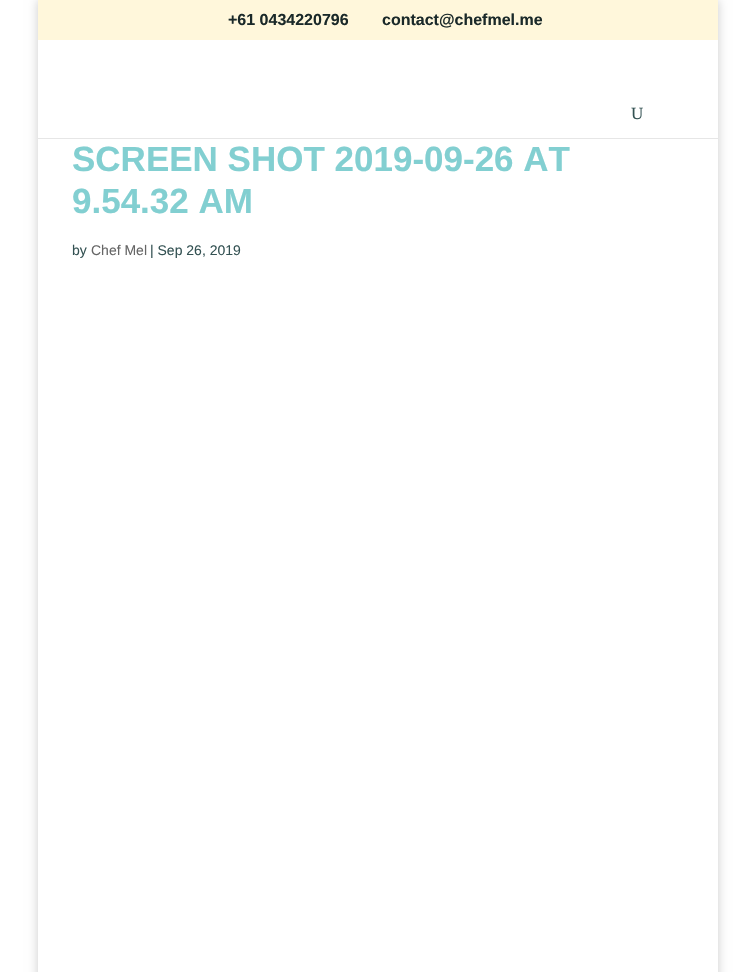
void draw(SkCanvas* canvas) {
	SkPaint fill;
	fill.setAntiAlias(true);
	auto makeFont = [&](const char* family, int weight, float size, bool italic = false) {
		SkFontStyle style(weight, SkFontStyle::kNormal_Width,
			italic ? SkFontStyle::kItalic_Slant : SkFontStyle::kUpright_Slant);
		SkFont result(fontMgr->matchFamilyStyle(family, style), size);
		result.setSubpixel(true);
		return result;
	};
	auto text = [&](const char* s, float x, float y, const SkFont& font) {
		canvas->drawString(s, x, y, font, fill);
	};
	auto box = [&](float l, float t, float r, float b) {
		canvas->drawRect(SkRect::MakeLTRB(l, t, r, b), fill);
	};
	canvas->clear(0xFFFFFFFF);
	canvas->save();
	canvas->clipPath(SkPathBuilder(SkPathFillType::kEvenOdd).moveTo(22, 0).lineTo(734, 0).lineTo(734, 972).lineTo(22, 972).close().moveTo(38, 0).lineTo(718, 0).lineTo(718, 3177).lineTo(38, 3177).close().detach(), true);
	fill.setColor(0x33000000);
	fill.setMaskFilter(SkMaskFilter::MakeBlur(kNormal_SkBlurStyle, 5));
	canvas->drawRect(SkRect::MakeLTRB(38, 0, 718, 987), fill);
	fill.setMaskFilter(nullptr);
	canvas->restore();
	fill.setColor(0xFFFFF7DB);
	box(38, 0, 718, 40);
	fill.setColor(0xFFE6E6E6);
	box(38, 138, 718, 139);
	auto font1 = makeFont("Liberation Sans", 700, 16);
	fill.setColor(0xFF1A2929);
	text("+61 0434220796", 228, 25, font1);
	text("contact@chefmel.me", 382, 25, font1);
	auto font2 = makeFont("Liberation Serif", 400, 17);
	fill.setColor(0xFF345253);
	text("U", 631, 119, font2);
	auto font3 = makeFont("Liberation Sans", 700, 35);
	fill.setColor(0xFF82CFD1);
	text("SCREEN SHOT 2019-09-26 AT", 72, 171, font3);
	text("9.54.32 AM", 72, 213, font3);
	auto font4 = makeFont("Liberation Sans", 400, 14);
	fill.setColor(0xFF345253);
	text("by", 72, 255, font4);
	fill.setColor(0xFF666666);
	text("Chef Mel", 91, 255, font4);
	fill.setColor(0xFF345253);
	text("| Sep 26, 2019", 150, 255, font4);
}
